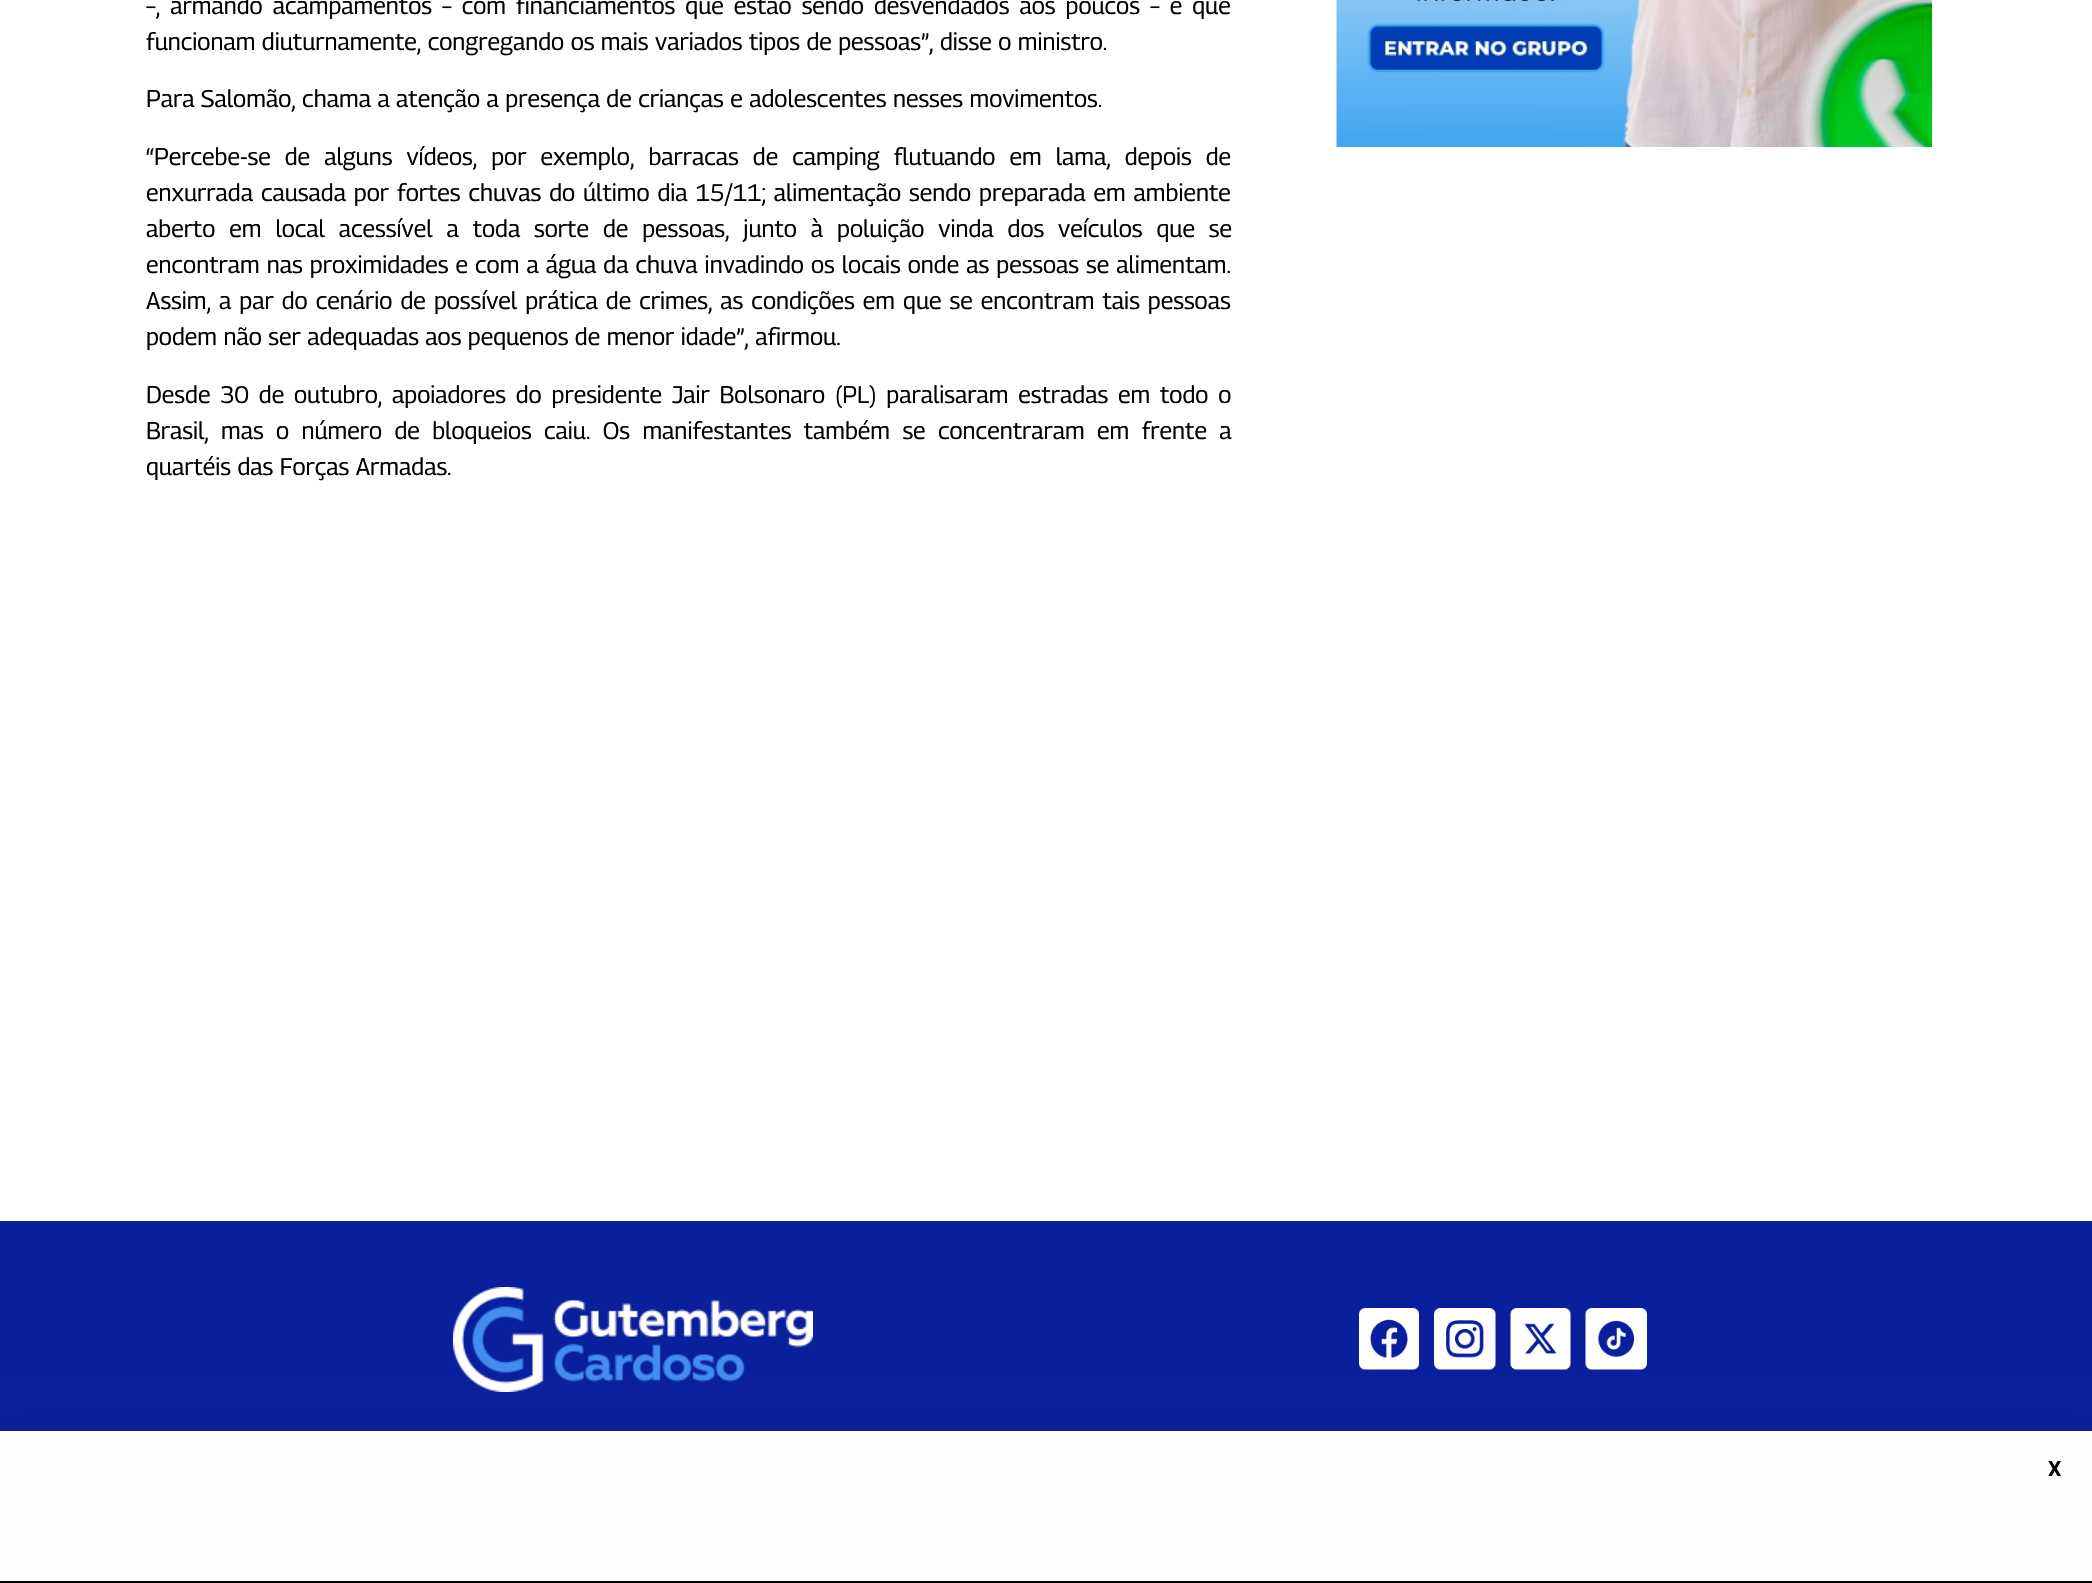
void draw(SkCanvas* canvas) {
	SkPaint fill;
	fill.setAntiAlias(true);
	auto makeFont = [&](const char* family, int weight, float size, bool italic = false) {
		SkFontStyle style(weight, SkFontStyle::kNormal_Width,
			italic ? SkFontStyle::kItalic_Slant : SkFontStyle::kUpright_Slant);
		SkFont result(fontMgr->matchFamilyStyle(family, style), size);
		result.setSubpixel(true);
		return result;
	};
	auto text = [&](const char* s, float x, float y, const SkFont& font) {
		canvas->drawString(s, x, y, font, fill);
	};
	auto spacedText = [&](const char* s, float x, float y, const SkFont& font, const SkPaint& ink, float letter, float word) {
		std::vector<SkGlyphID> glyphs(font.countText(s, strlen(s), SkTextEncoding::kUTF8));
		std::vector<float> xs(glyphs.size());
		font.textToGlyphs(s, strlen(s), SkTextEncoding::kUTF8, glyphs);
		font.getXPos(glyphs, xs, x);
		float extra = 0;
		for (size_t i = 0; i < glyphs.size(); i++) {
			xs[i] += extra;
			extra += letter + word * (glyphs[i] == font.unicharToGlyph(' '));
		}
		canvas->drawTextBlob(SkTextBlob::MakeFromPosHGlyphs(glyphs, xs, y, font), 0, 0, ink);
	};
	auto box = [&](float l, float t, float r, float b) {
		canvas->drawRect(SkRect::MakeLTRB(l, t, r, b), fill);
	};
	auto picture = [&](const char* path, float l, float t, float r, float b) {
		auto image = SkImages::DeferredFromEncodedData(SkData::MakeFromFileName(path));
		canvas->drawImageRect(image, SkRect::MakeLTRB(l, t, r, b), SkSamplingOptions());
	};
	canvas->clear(0xFFFFFFFF);
	picture("image0.png", 1336, 0, 1932, 147);
	fill.setColor(0xFF091F9C);
	box(0, 1221, 2092, 1431);
	picture("image1.png", 453, 1287, 813, 1392);
	picture("image2.png", 1359, 1308, 1419, 1370);
	picture("image3.png", 1434, 1308, 1496, 1370);
	picture("image4.png", 1510, 1308, 1571, 1370);
	picture("image5.png", 1585, 1308, 1647, 1370);
	fill.setColor(0xFF000000);
	box(0, 1581, 2092, 1583);
	fill.setColor(0x1A09204C);
	fill.setMaskFilter(SkMaskFilter::MakeBlur(kNormal_SkBlurStyle, 13.5f));
	canvas->drawRect(SkRect::MakeLTRB(0, 1422, 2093, 1572), fill);
	fill.setMaskFilter(nullptr);
	fill.setColor(0xFFFEFEFE);
	box(0, 1431, 2092, 1581);
	auto font1 = makeFont("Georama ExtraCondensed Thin", 400, 24);
	fill.setColor(0xFF000000);
	spacedText("–, armando acampamentos – com financiamentos que estão sendo desvendados aos poucos – e que", 146, 14, font1, fill, 0, 3.6f);
	text("funcionam diuturnamente, congregando os mais variados tipos de pessoas”, disse o ministro.", 146, 50, font1);
	text("Para Salomão, chama a atenção a presença de crianças e adolescentes nesses movimentos.", 146, 107, font1);
	spacedText("“Percebe-se de alguns vídeos, por exemplo, barracas de camping flutuando em lama, depois de", 146, 165, font1, fill, 0, 7.6f);
	spacedText("enxurrada causada por fortes chuvas do último dia 15/11; alimentação sendo preparada em ambiente", 146, 201, font1, fill, 0, 1.5f);
	spacedText("aberto em local acessível a toda sorte de pessoas, junto à poluição vinda dos veículos que se", 146, 237, font1, fill, 0, 7.5f);
	spacedText("encontram nas proximidades e com a água da chuva invadindo os locais onde as pessoas se alimentam.", 146, 273, font1, fill, 0, 0.6f);
	spacedText("Assim, a par do cenário de possível prática de crimes, as condições em que se encontram tais pessoas", 146, 309, font1, fill, 0, 1.6f);
	text("podem não ser adequadas aos pequenos de menor idade”, afirmou.", 146, 345, font1);
	spacedText("Desde 30 de outubro, apoiadores do presidente Jair Bolsonaro (PL) paralisaram estradas em todo o", 146, 403, font1, fill, 0, 3.4f);
	spacedText("Brasil, mas o número de bloqueios caiu. Os manifestantes também se concentraram em frente a", 146, 439, font1, fill, 0, 5.9f);
	text("quartéis das Forças Armadas.", 146, 475, font1);
	auto font2 = makeFont("Roboto", 700, 21);
	text("X", 2048, 1476, font2);
}
